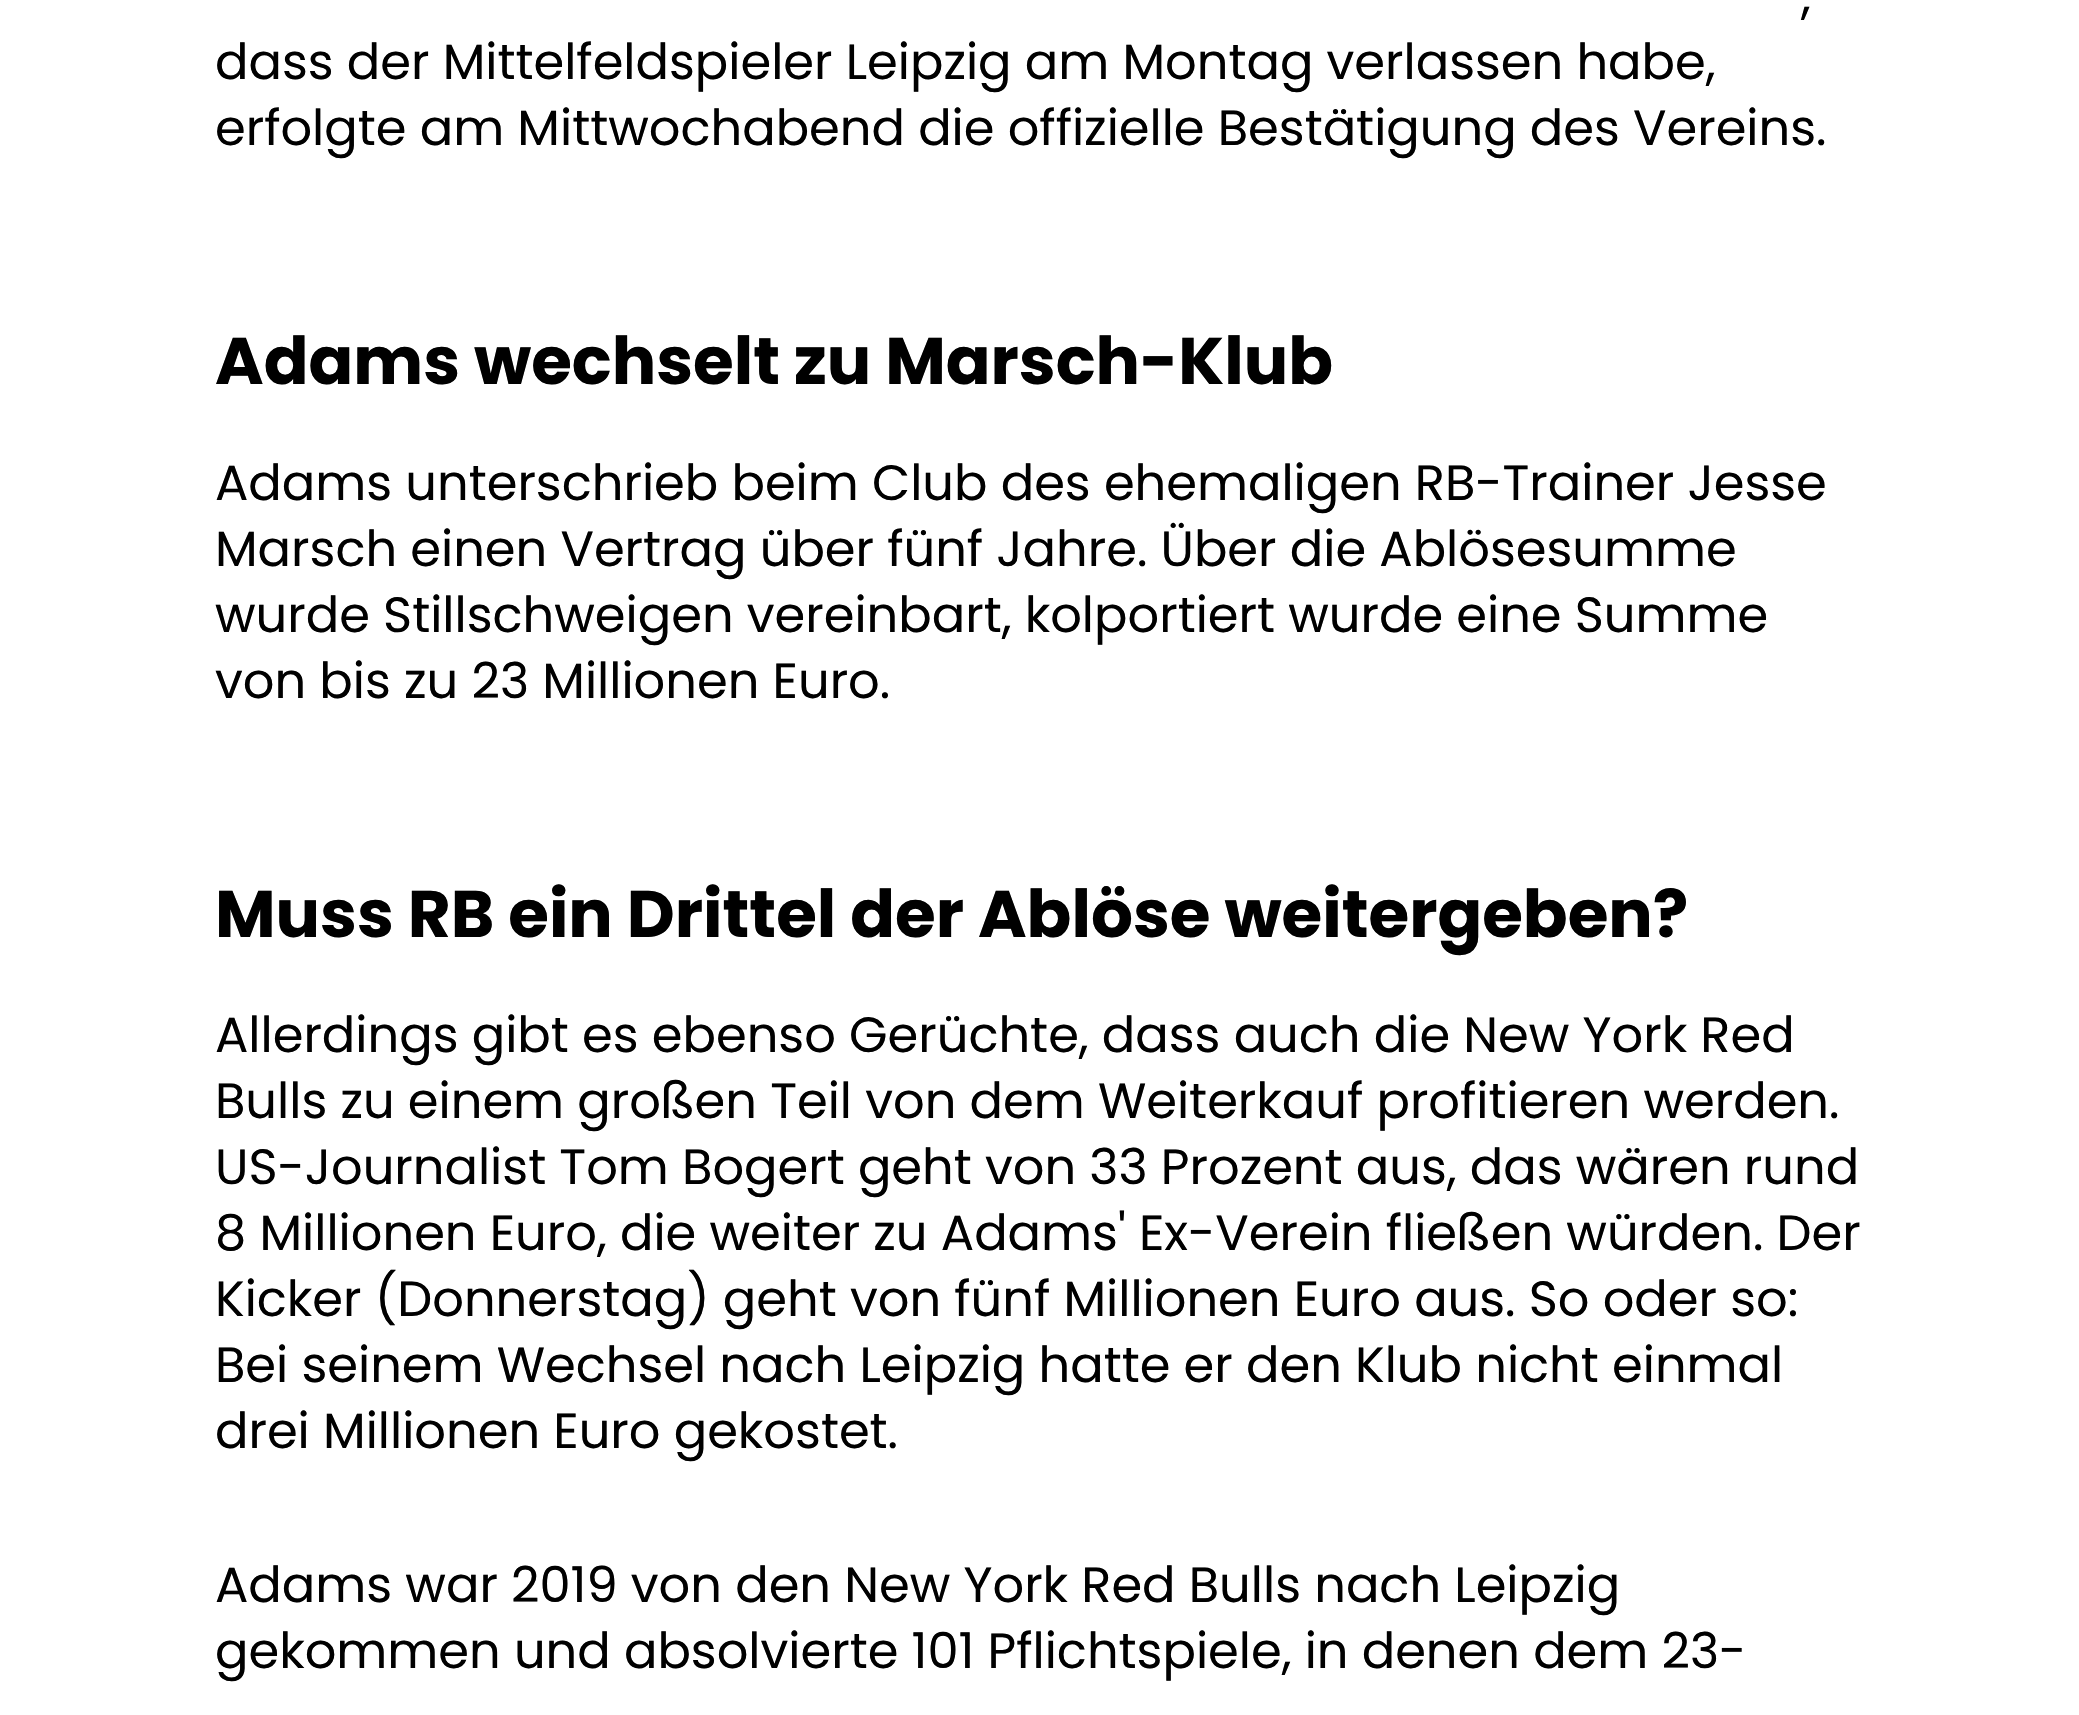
void draw(SkCanvas* canvas) {
	SkPaint fill;
	fill.setAntiAlias(true);
	auto makeFont = [&](const char* family, int weight, float size, bool italic = false) {
		SkFontStyle style(weight, SkFontStyle::kNormal_Width,
			italic ? SkFontStyle::kItalic_Slant : SkFontStyle::kUpright_Slant);
		SkFont result(fontMgr->matchFamilyStyle(family, style), size);
		result.setSubpixel(true);
		return result;
	};
	auto text = [&](const char* s, float x, float y, const SkFont& font) {
		canvas->drawString(s, x, y, font, fill);
	};
	canvas->clear(0xFFFFFFFF);
	auto font1 = makeFont("Poppins", 400, 49.5f);
	fill.setColor(0xFF000000);
	text(",", 1801, 13, font1);
	text("dass der Mittelfeldspieler Leipzig am Montag verlassen habe,", 215, 79, font1);
	text("erfolgte am Mittwochabend die offizielle Bestätigung des Vereins.", 215, 145, font1);
	auto font2 = makeFont("Poppins", 700, 66);
	text("Adams wechselt zu Marsch-Klub", 215, 384, font2);
	text("Adams unterschrieb beim Club des ehemaligen RB-Trainer Jesse", 215, 500, font1);
	text("Marsch einen Vertrag über fünf Jahre. Über die Ablösesumme", 215, 566, font1);
	text("wurde Stillschweigen vereinbart, kolportiert wurde eine Summe", 215, 632, font1);
	text("von bis zu 23 Millionen Euro.", 215, 698, font1);
	text("Muss RB ein Drittel der Ablöse weitergeben?", 215, 937, font2);
	text("Allerdings gibt es ebenso Gerüchte, dass auch die New York Red", 215, 1052, font1);
	text("Bulls zu einem großen Teil von dem Weiterkauf profitieren werden.", 215, 1118, font1);
	text("US-Journalist Tom Bogert geht von 33 Prozent aus, das wären rund", 215, 1184, font1);
	text("8 Millionen Euro, die weiter zu Adams' Ex-Verein fließen würden. Der", 215, 1250, font1);
	text("Kicker (Donnerstag) geht von fünf Millionen Euro aus. So oder so:", 215, 1316, font1);
	text("Bei seinem Wechsel nach Leipzig hatte er den Klub nicht einmal", 215, 1382, font1);
	text("drei Millionen Euro gekostet.", 215, 1448, font1);
	text("Adams war 2019 von den New York Red Bulls nach Leipzig", 215, 1602, font1);
	text("gekommen und absolvierte 101 Pflichtspiele, in denen dem 23-", 215, 1668, font1);
}
